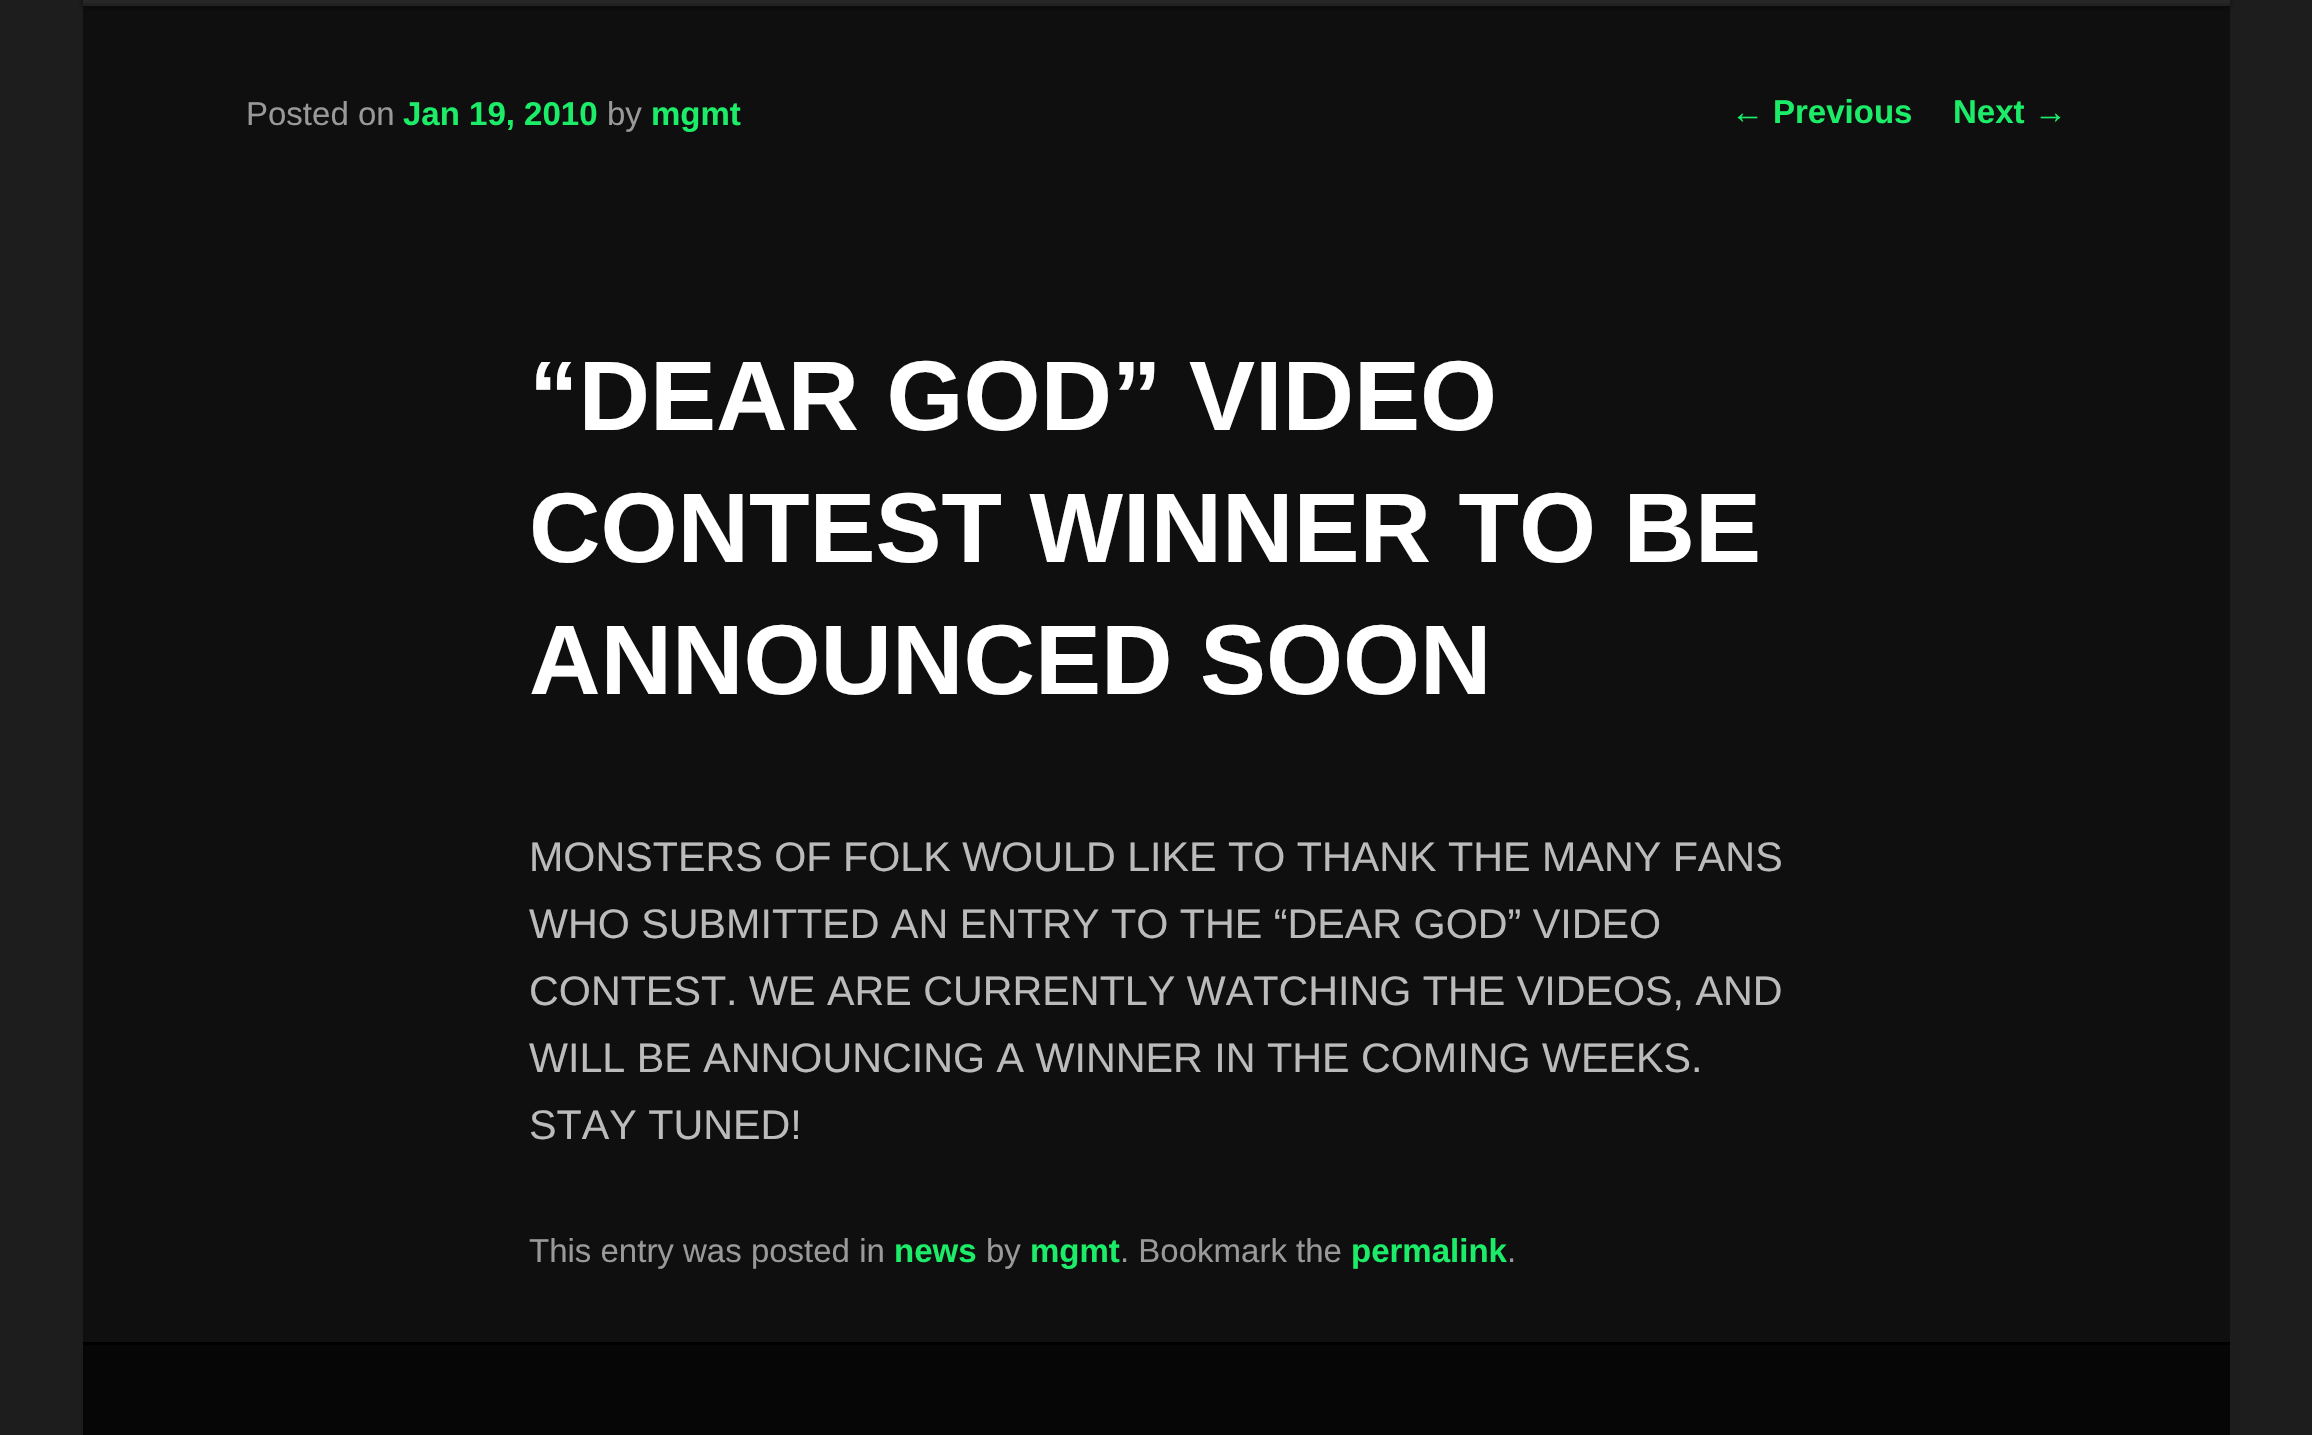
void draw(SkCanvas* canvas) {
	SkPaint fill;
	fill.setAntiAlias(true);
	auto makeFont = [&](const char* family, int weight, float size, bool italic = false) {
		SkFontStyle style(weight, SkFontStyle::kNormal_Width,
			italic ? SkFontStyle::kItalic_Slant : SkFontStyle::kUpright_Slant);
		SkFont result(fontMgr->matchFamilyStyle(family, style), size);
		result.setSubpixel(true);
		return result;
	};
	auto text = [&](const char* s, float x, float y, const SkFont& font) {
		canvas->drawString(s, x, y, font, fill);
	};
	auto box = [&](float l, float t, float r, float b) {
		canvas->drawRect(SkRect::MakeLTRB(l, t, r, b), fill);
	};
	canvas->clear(0xFF1D1D1D);
	fill.setColor(0xFF0F0F0F);
	box(83, 6, 2230, 1342);
	fill.setColor(0x66000000);
	fill.setMaskFilter(SkMaskFilter::MakeBlur(kNormal_SkBlurStyle, 3));
	canvas->drawRect(SkRect::MakeLTRB(83, -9, 2230, 8), fill);
	fill.setMaskFilter(nullptr);
	{
		const SkColor colors[] = {0xFF383838, 0xFF272727};
		const float stops[] = {0, 1};
		const SkPoint ends[] = {{1156, -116}, {1156, 2.8f}};
		fill.setShader(SkGradientShader::MakeLinear(ends, colors, stops, 2, SkTileMode::kClamp));
		fill.setAlpha(255);
	}
	box(83, 0, 2230, 3);
	fill.setShader(nullptr);
	fill.setColor(0xFF222222);
	box(83, 3, 2230, 6);
	fill.setColor(0xFF060606);
	box(83, 1345, 2230, 1435);
	fill.setColor(0xFF000000);
	box(83, 1342, 2230, 1345);
	auto font1 = makeFont("Liberation Sans", 400, 33);
	fill.setColor(0xFF999999);
	text("Posted on", 246, 125, font1);
	auto font2 = makeFont("Liberation Sans", 700, 33);
	fill.setColor(0xFF1CED68);
	text("Jan 19, 2010", 403, 125, font2);
	fill.setColor(0xFF999999);
	text("by", 607, 125, font1);
	fill.setColor(0xFF1CED68);
	text("mgmt", 651, 125, font2);
	auto font3 = makeFont("Liberation Sans", 700, 99);
	fill.setColor(0xFFFFFFFF);
	text("“DEAR GOD” VIDEO", 529, 430, font3);
	text("CONTEST WINNER TO BE", 529, 562, font3);
	text("ANNOUNCED SOON", 529, 694, font3);
	auto font4 = makeFont("Liberation Sans", 400, 41.25f);
	fill.setColor(0xFFBBBBBB);
	text("MONSTERS OF FOLK WOULD LIKE TO THANK THE MANY FANS", 529, 871, font4);
	text("WHO SUBMITTED AN ENTRY TO THE “DEAR GOD” VIDEO", 529, 938, font4);
	text("CONTEST. WE ARE CURRENTLY WATCHING THE VIDEOS, AND", 529, 1005, font4);
	text("WILL BE ANNOUNCING A WINNER IN THE COMING WEEKS.", 529, 1072, font4);
	text("STAY TUNED!", 529, 1139, font4);
	fill.setColor(0xFF999999);
	text("This entry was posted in", 529, 1262, font1);
	fill.setColor(0xFF1CED68);
	text("news", 894, 1262, font2);
	fill.setColor(0xFF999999);
	text("by", 986, 1262, font1);
	fill.setColor(0xFF1CED68);
	text("mgmt", 1030, 1262, font2);
	fill.setColor(0xFF999999);
	text(". Bookmark the", 1120, 1262, font1);
	fill.setColor(0xFF1CED68);
	text("permalink", 1351, 1262, font2);
	fill.setColor(0xFF999999);
	text(".", 1507, 1262, font1);
	fill.setColor(0xFF1CED68);
	text("←", 1731, 123, font1);
	text("Previous", 1773, 123, font2);
	text("Next", 1953, 123, font2);
	text("→", 2034, 123, font1);
}
